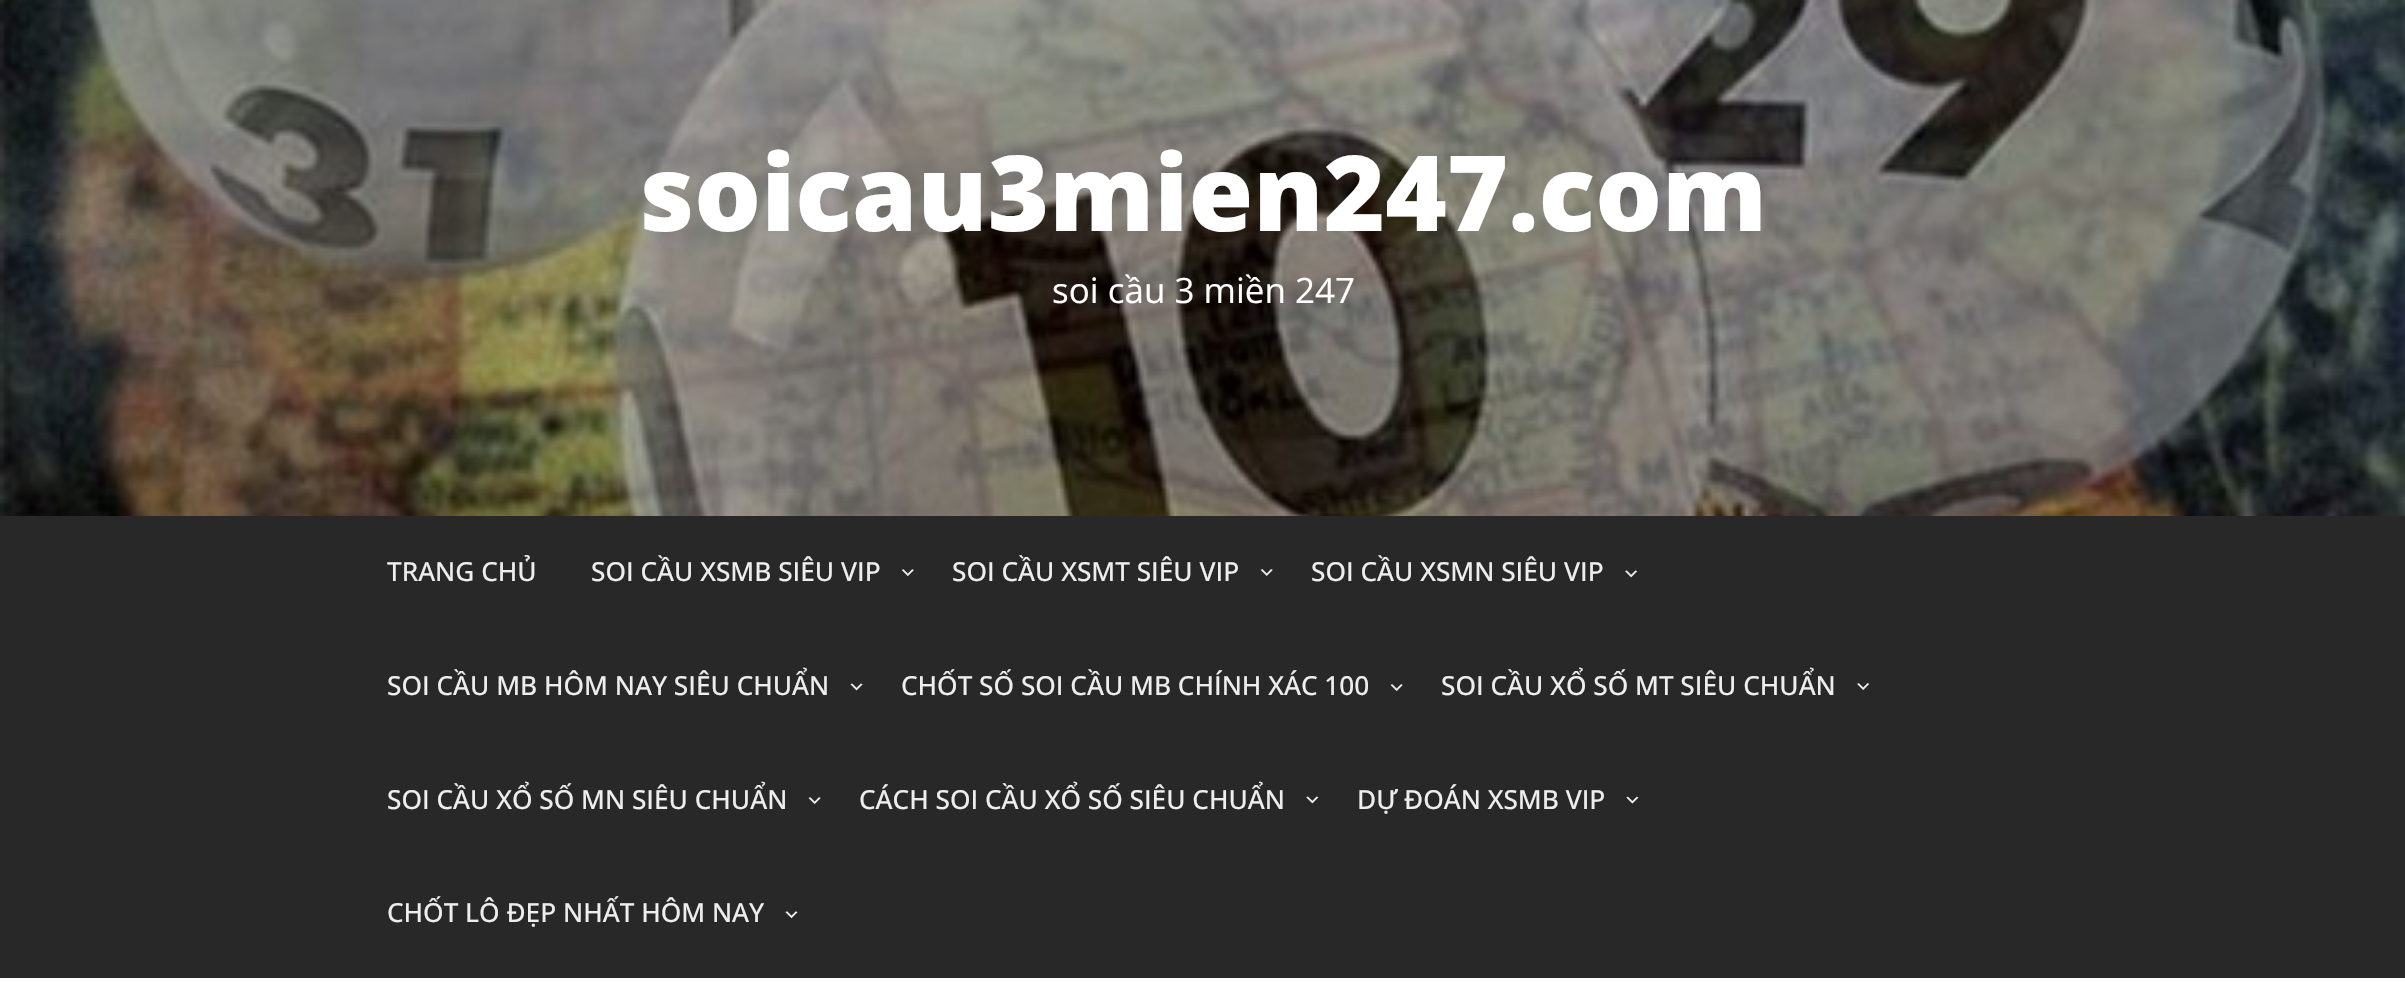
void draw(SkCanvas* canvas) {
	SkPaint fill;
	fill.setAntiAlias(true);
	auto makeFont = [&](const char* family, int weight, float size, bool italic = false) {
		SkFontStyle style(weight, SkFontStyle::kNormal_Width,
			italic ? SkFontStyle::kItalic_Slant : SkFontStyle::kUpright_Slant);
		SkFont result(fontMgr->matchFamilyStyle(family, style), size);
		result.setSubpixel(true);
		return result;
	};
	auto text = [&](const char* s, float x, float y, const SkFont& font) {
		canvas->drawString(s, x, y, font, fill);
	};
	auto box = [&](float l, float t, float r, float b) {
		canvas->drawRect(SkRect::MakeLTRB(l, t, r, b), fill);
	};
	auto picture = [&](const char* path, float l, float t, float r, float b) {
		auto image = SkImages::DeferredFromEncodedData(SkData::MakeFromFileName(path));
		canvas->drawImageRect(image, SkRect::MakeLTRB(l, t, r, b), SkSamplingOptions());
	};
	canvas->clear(0xFFFFFFFF);
	picture("image0.png", 0, 0, 2405, 516);
	fill.setColor(0xFF282828);
	box(0, 516, 2405, 978);
	picture("image1.png", 901, 569, 914, 577);
	picture("image2.png", 1260, 569, 1273, 576);
	picture("image3.png", 1625, 570, 1638, 578);
	picture("image4.png", 850, 683, 863, 691);
	picture("image5.png", 1390, 684, 1403, 691);
	picture("image6.png", 1857, 683, 1870, 690);
	picture("image7.png", 808, 797, 821, 804);
	picture("image8.png", 1306, 796, 1319, 804);
	picture("image9.png", 1626, 796, 1639, 804);
	picture("image10.png", 785, 911, 798, 919);
	auto font1 = makeFont("Open Sans", 800, 105);
	fill.setColor(0xFFFFFFFF);
	text("soicau3mien247.com", 640, 231, font1);
	auto font2 = makeFont("Open Sans", 400, 35);
	text("soi cầu 3 miền 247", 1052, 303, font2);
	auto font3 = makeFont("Open Sans", 500, 26.25f);
	fill.setColor(0xFFEEEEEE);
	text("TRANG CHỦ", 387, 581, font3);
	text("SOI CẦU XSMB SIÊU VIP", 591, 581, font3);
	text("SOI CẦU XSMT SIÊU VIP", 952, 581, font3);
	text("SOI CẦU XSMN SIÊU VIP", 1311, 581, font3);
	text("SOI CẦU MB HÔM NAY SIÊU CHUẨN", 387, 695, font3);
	text("CHỐT SỐ SOI CẦU MB CHÍNH XÁC 100", 901, 695, font3);
	text("SOI CẦU XỔ SỐ MT SIÊU CHUẨN", 1441, 695, font3);
	text("SOI CẦU XỔ SỐ MN SIÊU CHUẨN", 387, 809, font3);
	text("CÁCH SOI CẦU XỔ SỐ SIÊU CHUẨN", 859, 809, font3);
	text("DỰ ĐOÁN XSMB VIP", 1357, 809, font3);
	text("CHỐT LÔ ĐẸP NHẤT HÔM NAY", 387, 922, font3);
}
